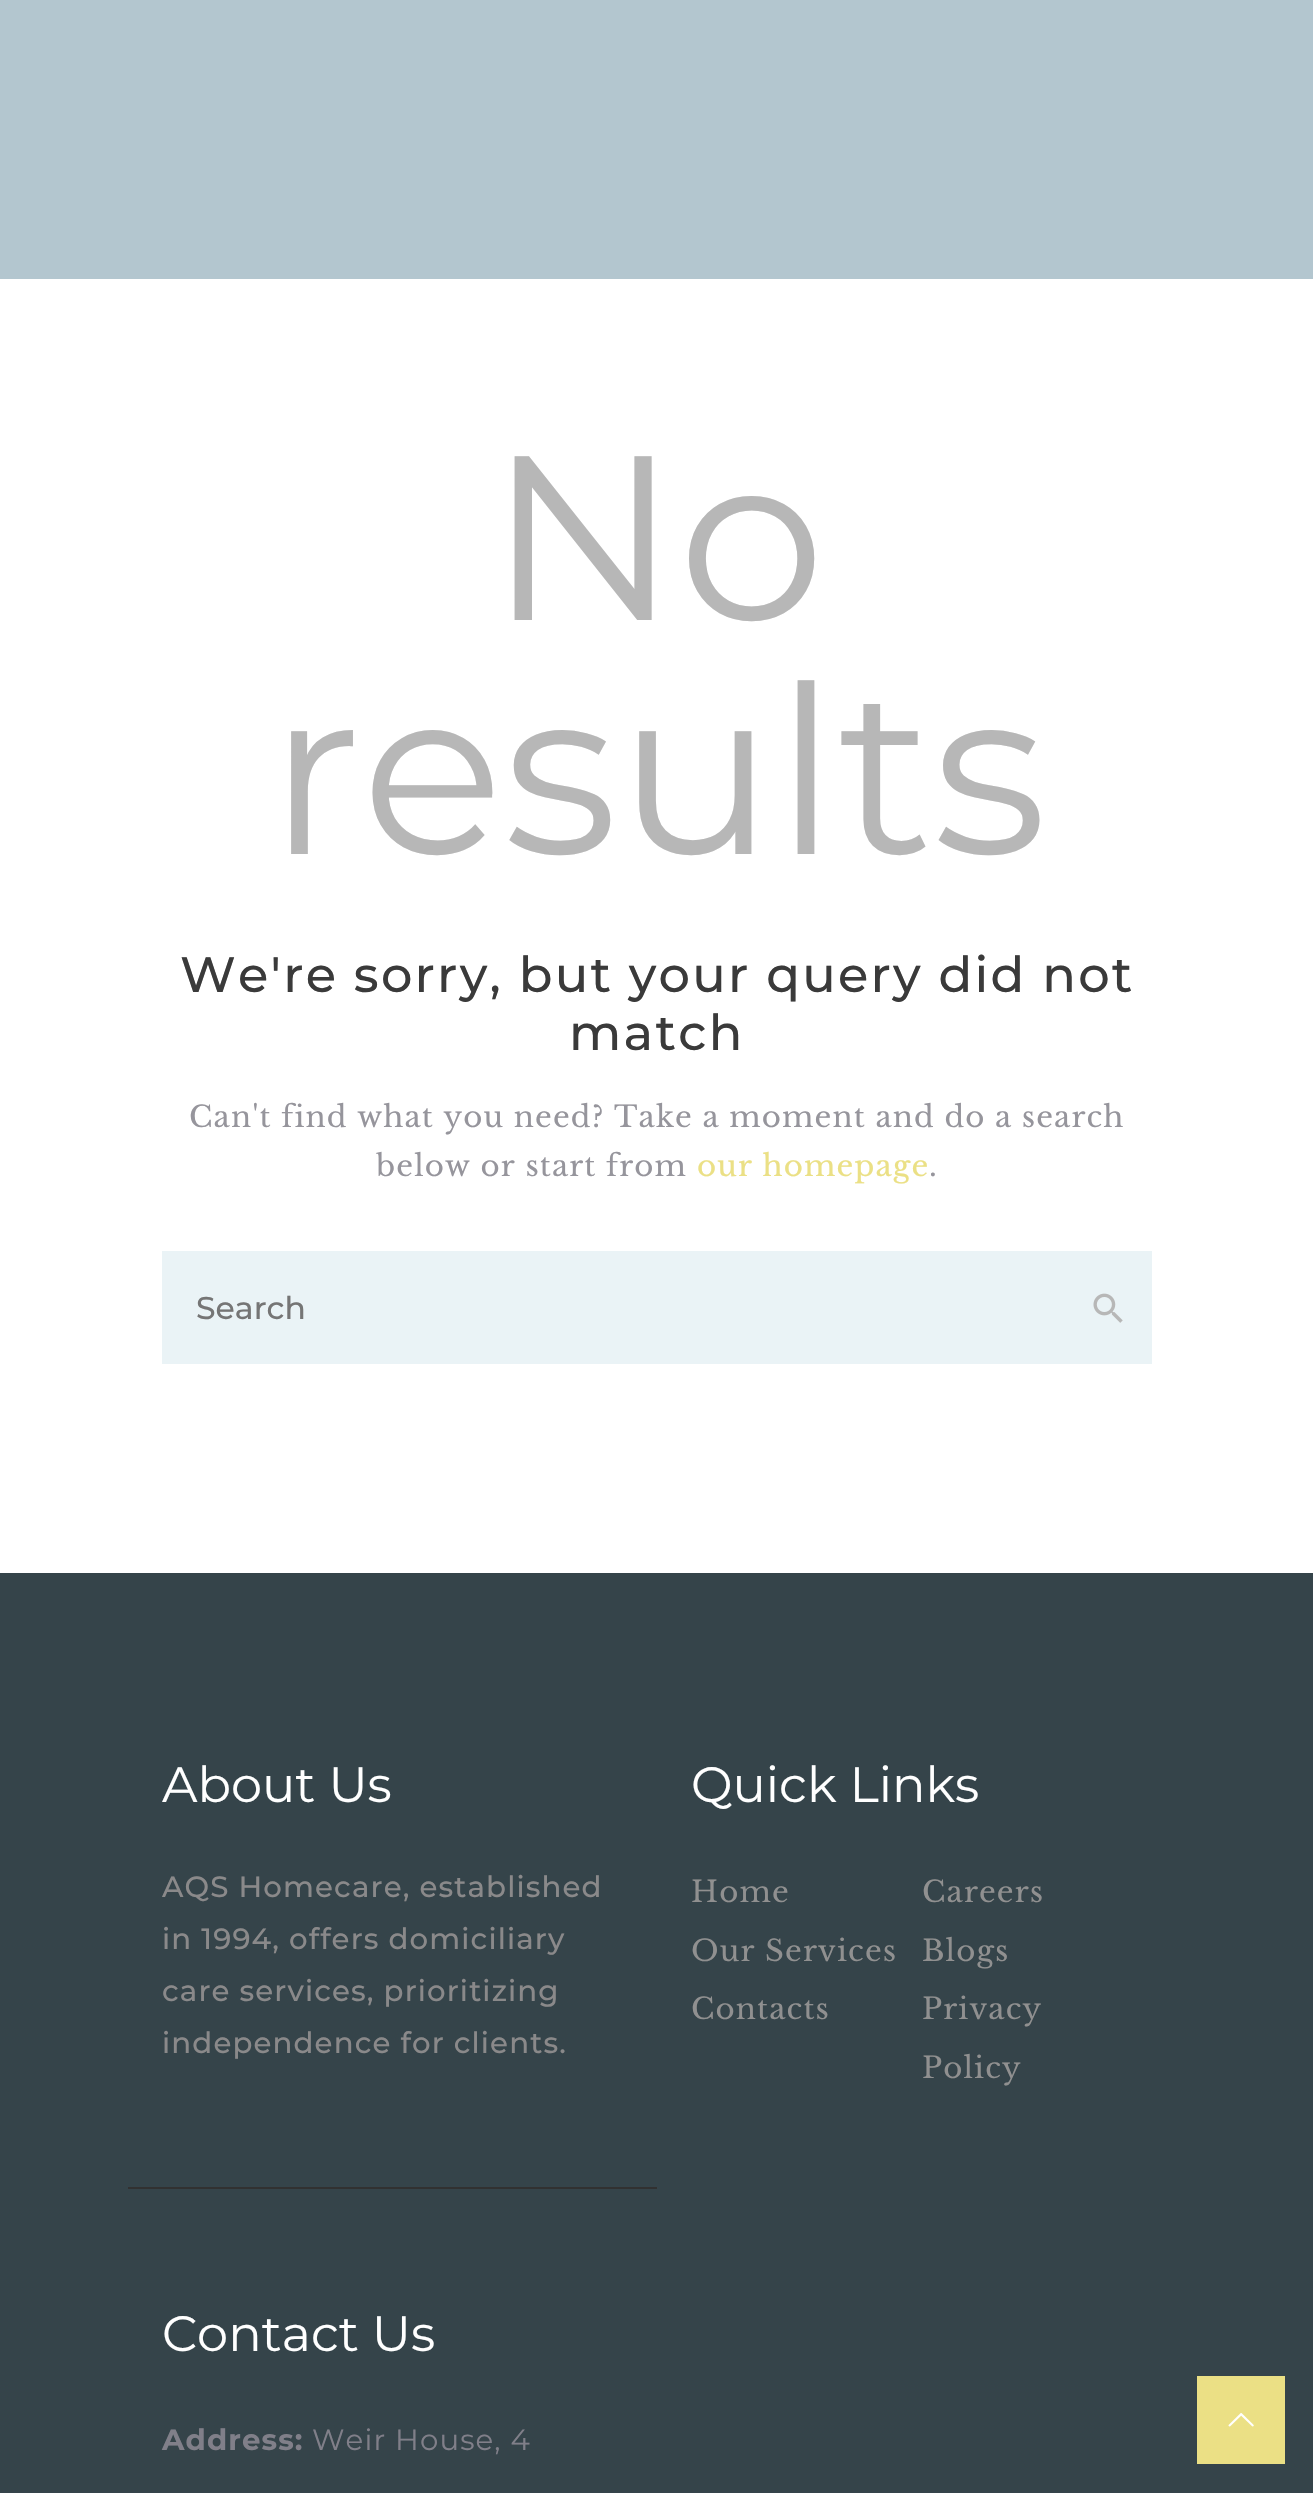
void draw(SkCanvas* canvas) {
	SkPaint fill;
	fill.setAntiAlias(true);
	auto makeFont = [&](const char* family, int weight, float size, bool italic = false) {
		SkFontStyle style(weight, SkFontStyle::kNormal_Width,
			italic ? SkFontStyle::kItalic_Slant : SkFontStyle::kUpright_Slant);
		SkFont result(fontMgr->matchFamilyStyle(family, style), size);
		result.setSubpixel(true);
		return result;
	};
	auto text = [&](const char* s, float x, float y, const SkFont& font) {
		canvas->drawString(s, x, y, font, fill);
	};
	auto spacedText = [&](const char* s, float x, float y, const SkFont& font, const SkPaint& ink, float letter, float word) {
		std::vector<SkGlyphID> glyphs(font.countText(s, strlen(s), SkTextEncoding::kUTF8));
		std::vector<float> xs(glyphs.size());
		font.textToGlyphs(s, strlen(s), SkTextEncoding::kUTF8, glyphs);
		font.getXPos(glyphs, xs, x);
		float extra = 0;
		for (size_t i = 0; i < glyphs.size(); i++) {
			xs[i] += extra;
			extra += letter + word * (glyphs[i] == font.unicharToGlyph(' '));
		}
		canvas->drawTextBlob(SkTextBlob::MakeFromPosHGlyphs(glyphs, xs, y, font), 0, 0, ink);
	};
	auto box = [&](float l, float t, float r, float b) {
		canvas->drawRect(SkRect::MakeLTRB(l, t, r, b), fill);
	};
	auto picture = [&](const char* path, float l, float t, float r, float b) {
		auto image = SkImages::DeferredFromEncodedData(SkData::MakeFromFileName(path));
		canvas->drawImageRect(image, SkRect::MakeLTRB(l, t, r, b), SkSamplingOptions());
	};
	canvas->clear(0xFFFFFFFF);
	fill.setColor(0xFFB3C6CF);
	box(0, 0, 1313, 279);
	fill.setColor(0xFFEAF3F6);
	box(162, 1251, 1152, 1364);
	picture("image0.png", 1093, 1293, 1123, 1323);
	fill.setColor(0xFF35444A);
	box(0, 1573, 1313, 2493);
	fill.setColor(0xFF313131);
	box(128, 2187, 657, 2189);
	fill.setColor(0xFFEBE085);
	box(1197, 2376, 1285, 2464);
	picture("image1.png", 1228, 2413, 1254, 2427);
	auto font1 = makeFont("Montserrat", 400, 234);
	fill.setColor(0xFFB7B7B7);
	text("No", 488, 620, font1);
	text("results", 268, 854, font1);
	auto font2 = makeFont("Montserrat", 500, 49.5f);
	fill.setColor(0xFF3A3A3A);
	spacedText("We're sorry, but your query did not", 180, 992, font2, fill, 2.25f, 0);
	spacedText("match", 569, 1050, font2, fill, 2.25f, 0);
	auto font3 = makeFont("Libre Baskerville", 400, 29.25f);
	fill.setColor(0xFF96959C);
	spacedText("Can't find what you need? Take a moment and do a search", 189, 1127, font3, fill, 1.12f, 0);
	spacedText("below or start from", 376, 1176, font3, fill, 1.12f, 0);
	fill.setColor(0xFFEBE085);
	spacedText("our homepage", 697, 1176, font3, fill, 1.12f, 0);
	fill.setColor(0xFF96959C);
	spacedText(".", 929, 1176, font3, fill, 1.12f, 0);
	auto font4 = makeFont("Montserrat", 500, 31.5f);
	fill.setColor(0xFF757575);
	text("Search", 196, 1319, font4);
	auto font5 = makeFont("Montserrat", 400, 49.5f);
	fill.setColor(0xFFFFFFFF);
	text("About Us", 162, 1802, font5);
	auto font6 = makeFont("Montserrat", 500, 29.25f);
	fill.setColor(0xFF8A898A);
	spacedText("AQS Homecare, established", 162, 1897, font6, fill, 1.12f, 0);
	spacedText("in 1994, offers domiciliary", 162, 1949, font6, fill, 1.12f, 0);
	spacedText("care services, prioritizing", 162, 2001, font6, fill, 1.12f, 0);
	spacedText("independence for clients.", 162, 2053, font6, fill, 1.12f, 0);
	fill.setColor(0xFFFFFFFF);
	text("Quick Links", 691, 1802, font5);
	fill.setColor(0xFF909090);
	spacedText("Home", 691, 1902, font3, fill, 1.12f, 0);
	spacedText("Careers", 922, 1902, font3, fill, 1.12f, 0);
	spacedText("Our Services", 691, 1961, font3, fill, 1.12f, 0);
	spacedText("Blogs", 922, 1961, font3, fill, 1.12f, 0);
	spacedText("Contacts", 691, 2019, font3, fill, 1.12f, 0);
	spacedText("Privacy", 922, 2019, font3, fill, 1.12f, 0);
	spacedText("Policy", 922, 2078, font3, fill, 1.12f, 0);
	fill.setColor(0xFFFFFFFF);
	text("Contact Us", 162, 2351, font5);
	auto font7 = makeFont("Montserrat", 700, 29.25f);
	fill.setColor(0xFF807F89);
	spacedText("Address:", 162, 2450, font7, fill, 1.12f, 0);
	auto font8 = makeFont("Montserrat", 400, 29.25f);
	spacedText("Weir House, 4", 312, 2450, font8, fill, 1.12f, 0);
}
